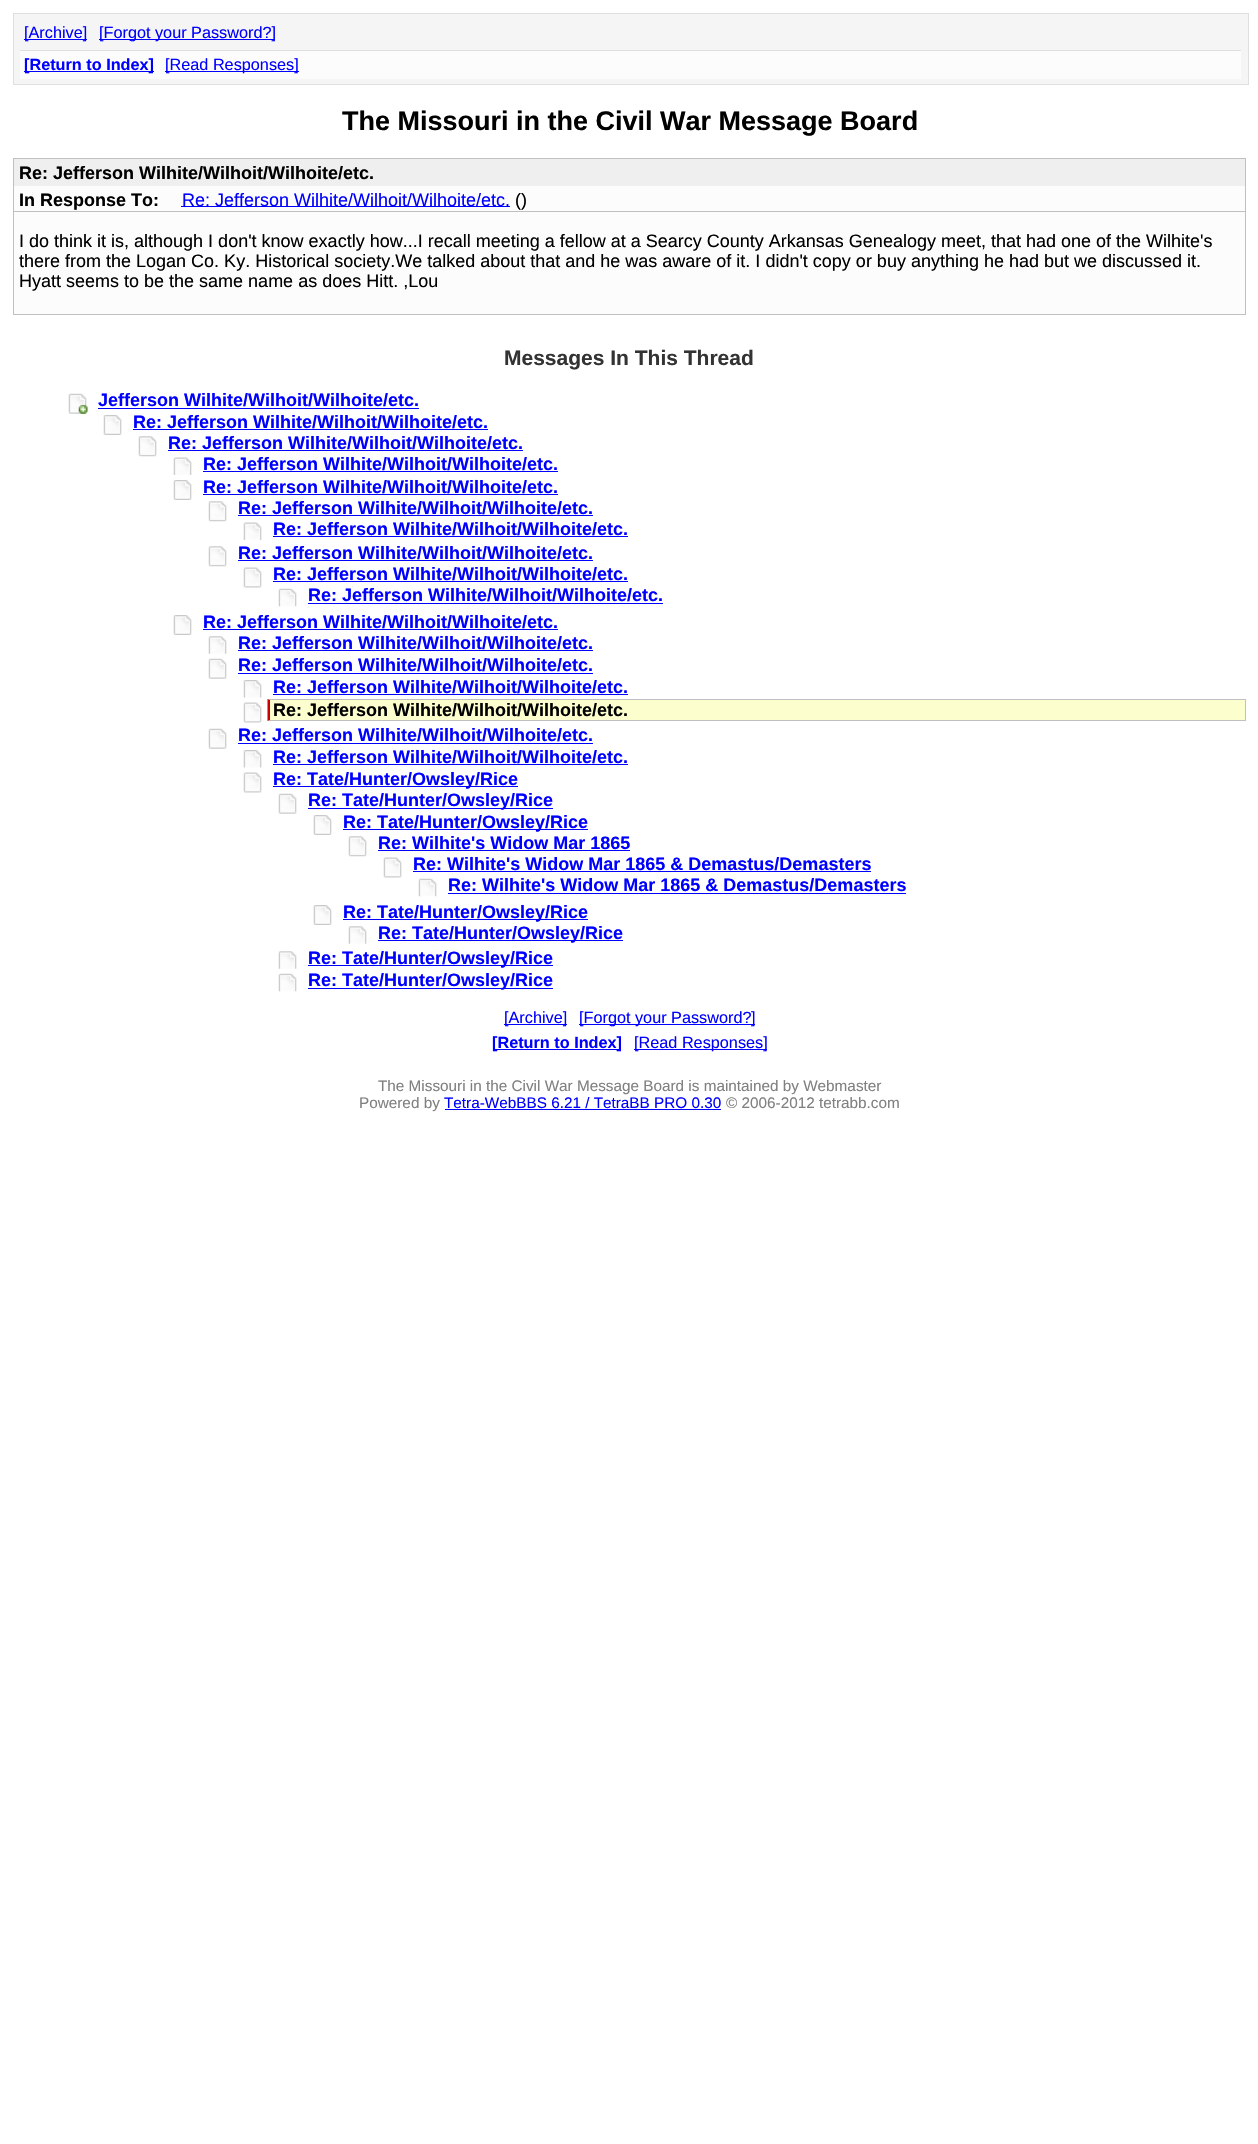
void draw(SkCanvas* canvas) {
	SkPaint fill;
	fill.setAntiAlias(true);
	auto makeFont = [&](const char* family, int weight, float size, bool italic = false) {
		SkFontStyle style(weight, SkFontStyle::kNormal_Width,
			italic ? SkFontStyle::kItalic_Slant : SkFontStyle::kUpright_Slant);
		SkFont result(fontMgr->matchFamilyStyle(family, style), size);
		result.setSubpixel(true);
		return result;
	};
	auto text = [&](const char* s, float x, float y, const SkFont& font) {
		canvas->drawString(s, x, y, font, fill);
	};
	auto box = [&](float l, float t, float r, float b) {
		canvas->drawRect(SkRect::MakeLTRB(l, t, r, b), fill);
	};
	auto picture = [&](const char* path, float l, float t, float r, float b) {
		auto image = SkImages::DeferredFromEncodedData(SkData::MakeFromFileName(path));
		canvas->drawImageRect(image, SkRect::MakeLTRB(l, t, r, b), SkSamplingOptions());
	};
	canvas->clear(0xFFFFFFFF);
	fill.setColor(0xFFF5F5F5);
	canvas->drawRect(SkRect::MakeLTRB(13.5f, 13.5f, 1248.5f, 84.5f), fill);
	fill.setStyle(SkPaint::kStroke_Style);
	fill.setStrokeWidth(1);
	fill.setColor(0xFFDFDFDF);
	canvas->drawRect(SkRect::MakeLTRB(13.5f, 13.5f, 1248.5f, 84.5f), fill);
	fill.setStyle(SkPaint::kFill_Style);
	fill.setColor(0xFF0000FF);
	box(24, 39, 87, 40);
	box(99, 39, 275, 40);
	fill.setColor(0xFFFCFCFC);
	box(20, 51, 1241, 79);
	fill.setColor(0xFFDFDFDF);
	box(20, 50, 1241, 51);
	fill.setColor(0xFF0000FF);
	box(24, 71, 154, 72);
	box(165, 71, 299, 72);
	fill.setColor(0xFFFCFCFC);
	box(14, 186, 1245, 314);
	fill.setStyle(SkPaint::kStroke_Style);
	fill.setColor(0xFFC0C0C0);
	canvas->drawRect(SkRect::MakeLTRB(13.5f, 158.5f, 1245.5f, 314.5f), fill);
	fill.setStyle(SkPaint::kFill_Style);
	fill.setColor(0xFFEFEFEF);
	box(14, 159, 1245, 186);
	fill.setColor(0xFF0000FF);
	box(181, 206, 510, 207);
	fill.setColor(0xFFC0C0C0);
	box(14, 211, 1245, 212);
	picture("image0.png", 68, 393, 88, 414);
	fill.setColor(0xFF0000FF);
	box(98, 408, 419, 409);
	picture("image1.png", 103, 415, 122, 435);
	box(133, 429, 488, 430);
	picture("image2.png", 138, 436, 157, 457);
	box(168, 450, 523, 451);
	picture("image3.png", 173, 457, 192, 475);
	box(203, 471, 558, 472);
	picture("image1.png", 173, 480, 192, 500);
	box(203, 494, 558, 495);
	picture("image2.png", 208, 501, 227, 522);
	box(238, 515, 593, 516);
	picture("image4.png", 243, 522, 262, 540);
	box(273, 536, 628, 537);
	picture("image2.png", 208, 546, 227, 567);
	box(238, 560, 593, 561);
	picture("image5.png", 243, 567, 262, 588);
	box(273, 581, 628, 582);
	picture("image6.png", 278, 588, 297, 607);
	box(308, 603, 663, 604);
	picture("image1.png", 173, 615, 192, 635);
	box(203, 629, 558, 630);
	picture("image7.png", 208, 636, 227, 654);
	box(238, 650, 593, 651);
	picture("image8.png", 208, 658, 227, 679);
	box(238, 673, 593, 674);
	picture("image9.png", 243, 680, 262, 698);
	box(273, 694, 628, 695);
	picture("image5.png", 243, 702, 262, 723);
	fill.setColor(0xFFFCFFCD);
	box(270, 700, 1245, 720);
	fill.setColor(0xFFC0C0C0);
	canvas->drawPath(SkPathBuilder().moveTo(268, 699).lineTo(1246, 699).lineTo(1245, 700).lineTo(270, 700).close().detach(), fill);
	box(1245, 699, 1246, 721);
	canvas->drawPath(SkPathBuilder().moveTo(1246, 721).lineTo(268, 721).lineTo(270, 720).lineTo(1245, 720).close().detach(), fill);
	fill.setColor(0xFFCC0000);
	canvas->drawPath(SkPathBuilder().moveTo(267.5f, 721).lineTo(267.5f, 699).lineTo(270, 700).lineTo(270, 720).close().detach(), fill);
	picture("image8.png", 208, 728, 227, 749);
	fill.setColor(0xFF0000FF);
	box(238, 743, 593, 744);
	picture("image9.png", 243, 750, 262, 768);
	box(273, 764, 628, 765);
	picture("image10.png", 243, 772, 262, 793);
	box(273, 786, 518, 787);
	picture("image11.png", 278, 793, 297, 814);
	box(308, 808, 553, 809);
	picture("image1.png", 313, 815, 332, 835);
	box(343, 829, 588, 830);
	picture("image12.png", 348, 836, 367, 857);
	box(378, 850, 630, 851);
	picture("image13.png", 383, 857, 402, 878);
	box(413, 871, 871, 872);
	picture("image14.png", 418, 878, 437, 897);
	box(448, 893, 906, 894);
	picture("image1.png", 313, 905, 332, 925);
	box(343, 919, 588, 920);
	picture("image15.png", 348, 926, 367, 944);
	box(378, 940, 623, 941);
	picture("image15.png", 278, 951, 297, 969);
	box(308, 965, 553, 966);
	picture("image6.png", 278, 973, 297, 992);
	box(308, 988, 553, 989);
	box(504, 1024, 567, 1025);
	box(579, 1024, 750, 1025);
	box(750, 1024, 755, 1025);
	box(493, 1049, 621, 1050);
	box(634, 1049, 767, 1050);
	box(445, 1109, 721, 1110);
	auto font1 = makeFont("Liberation Sans", 400, 16.25f);
	text("[Archive]", 24, 38, font1);
	text("[Forgot your Password?]", 99, 38, font1);
	auto font2 = makeFont("Liberation Sans", 700, 16.25f);
	text("[Return to Index]", 24, 70, font2);
	text("[Read Responses]", 165, 70, font1);
	auto font3 = makeFont("Liberation Sans", 700, 27);
	fill.setColor(0xFF000000);
	text("The Missouri in the Civil War Message Board", 342, 130, font3);
	auto font4 = makeFont("Liberation Sans", 700, 18);
	text("Re: Jefferson Wilhite/Wilhoit/Wilhoite/etc.", 19, 179, font4);
	text("In Response To:", 19, 206, font4);
	auto font5 = makeFont("Liberation Sans", 400, 18);
	fill.setColor(0xFF0000FF);
	text("Re: Jefferson Wilhite/Wilhoit/Wilhoite/etc.", 182, 206, font5);
	fill.setColor(0xFF000000);
	text("()", 515, 206, font5);
	text("I do think it is, although I don't know exactly how...I recall meeting a fellow at a Searcy County Arkansas Genealogy meet, that had one of the Wilhite's", 19, 247, font5);
	text("there from the Logan Co. Ky. Historical society.We talked about that and he was aware of it. I didn't copy or buy anything he had but we discussed it.", 19, 267, font5);
	text("Hyatt seems to be the same name as does Hitt. ,Lou", 19, 287, font5);
	auto font6 = makeFont("Liberation Sans", 700, 21);
	fill.setColor(0xFF333333);
	text("Messages In This Thread", 504, 365, font6);
	fill.setColor(0xFF0000FF);
	text("Jefferson Wilhite/Wilhoit/Wilhoite/etc.", 98, 406, font4);
	text("Re: Jefferson Wilhite/Wilhoit/Wilhoite/etc.", 133, 428, font4);
	text("Re: Jefferson Wilhite/Wilhoit/Wilhoite/etc.", 168, 449, font4);
	text("Re: Jefferson Wilhite/Wilhoit/Wilhoite/etc.", 203, 470, font4);
	text("Re: Jefferson Wilhite/Wilhoit/Wilhoite/etc.", 203, 493, font4);
	text("Re: Jefferson Wilhite/Wilhoit/Wilhoite/etc.", 238, 514, font4);
	text("Re: Jefferson Wilhite/Wilhoit/Wilhoite/etc.", 273, 535, font4);
	text("Re: Jefferson Wilhite/Wilhoit/Wilhoite/etc.", 238, 559, font4);
	text("Re: Jefferson Wilhite/Wilhoit/Wilhoite/etc.", 273, 580, font4);
	text("Re: Jefferson Wilhite/Wilhoit/Wilhoite/etc.", 308, 601, font4);
	text("Re: Jefferson Wilhite/Wilhoit/Wilhoite/etc.", 203, 628, font4);
	text("Re: Jefferson Wilhite/Wilhoit/Wilhoite/etc.", 238, 649, font4);
	text("Re: Jefferson Wilhite/Wilhoit/Wilhoite/etc.", 238, 671, font4);
	text("Re: Jefferson Wilhite/Wilhoit/Wilhoite/etc.", 273, 693, font4);
	fill.setColor(0xFF000000);
	text("Re: Jefferson Wilhite/Wilhoit/Wilhoite/etc.", 273, 716, font4);
	fill.setColor(0xFF0000FF);
	text("Re: Jefferson Wilhite/Wilhoit/Wilhoite/etc.", 238, 741, font4);
	text("Re: Jefferson Wilhite/Wilhoit/Wilhoite/etc.", 273, 763, font4);
	text("Re: Tate/Hunter/Owsley/Rice", 273, 785, font4);
	text("Re: Tate/Hunter/Owsley/Rice", 308, 806, font4);
	text("Re: Tate/Hunter/Owsley/Rice", 343, 828, font4);
	text("Re: Wilhite's Widow Mar 1865", 378, 849, font4);
	text("Re: Wilhite's Widow Mar 1865 & Demastus/Demasters", 413, 870, font4);
	text("Re: Wilhite's Widow Mar 1865 & Demastus/Demasters", 448, 891, font4);
	text("Re: Tate/Hunter/Owsley/Rice", 343, 918, font4);
	text("Re: Tate/Hunter/Owsley/Rice", 378, 939, font4);
	text("Re: Tate/Hunter/Owsley/Rice", 308, 964, font4);
	text("Re: Tate/Hunter/Owsley/Rice", 308, 986, font4);
	text("[Archive]", 504, 1023, font1);
	text("[Forgot your Password?", 579, 1023, font1);
	text("]", 751, 1023, font1);
	text("[Return to Index]", 492, 1048, font2);
	text("[Read Responses]", 634, 1048, font1);
	auto font7 = makeFont("Liberation Sans", 400, 15.3f);
	fill.setColor(0xFF808080);
	text("The Missouri in the Civil War Message Board is maintained by Webmaster", 378, 1091, font7);
	text("Powered by", 359, 1108, font7);
	fill.setColor(0xFF0000FF);
	text("Tetra-WebBBS 6.21 / TetraBB PRO 0.30", 444, 1108, font7);
	fill.setColor(0xFF808080);
	text("© 2006-2012 tetrabb.com", 726, 1108, font7);
}
